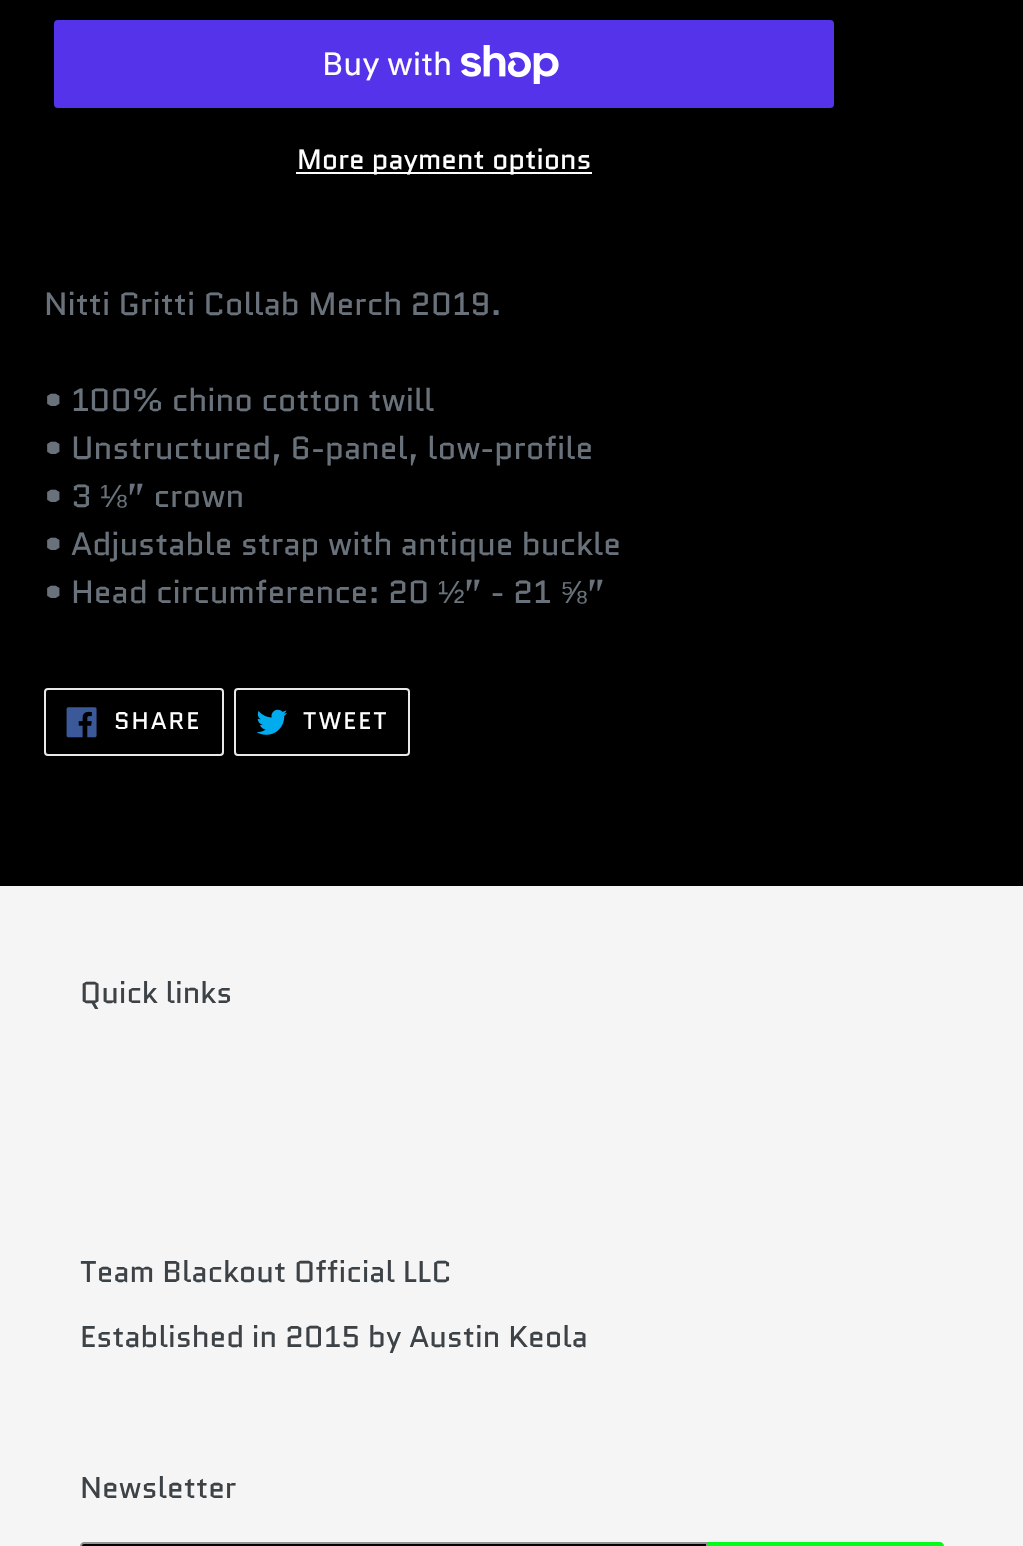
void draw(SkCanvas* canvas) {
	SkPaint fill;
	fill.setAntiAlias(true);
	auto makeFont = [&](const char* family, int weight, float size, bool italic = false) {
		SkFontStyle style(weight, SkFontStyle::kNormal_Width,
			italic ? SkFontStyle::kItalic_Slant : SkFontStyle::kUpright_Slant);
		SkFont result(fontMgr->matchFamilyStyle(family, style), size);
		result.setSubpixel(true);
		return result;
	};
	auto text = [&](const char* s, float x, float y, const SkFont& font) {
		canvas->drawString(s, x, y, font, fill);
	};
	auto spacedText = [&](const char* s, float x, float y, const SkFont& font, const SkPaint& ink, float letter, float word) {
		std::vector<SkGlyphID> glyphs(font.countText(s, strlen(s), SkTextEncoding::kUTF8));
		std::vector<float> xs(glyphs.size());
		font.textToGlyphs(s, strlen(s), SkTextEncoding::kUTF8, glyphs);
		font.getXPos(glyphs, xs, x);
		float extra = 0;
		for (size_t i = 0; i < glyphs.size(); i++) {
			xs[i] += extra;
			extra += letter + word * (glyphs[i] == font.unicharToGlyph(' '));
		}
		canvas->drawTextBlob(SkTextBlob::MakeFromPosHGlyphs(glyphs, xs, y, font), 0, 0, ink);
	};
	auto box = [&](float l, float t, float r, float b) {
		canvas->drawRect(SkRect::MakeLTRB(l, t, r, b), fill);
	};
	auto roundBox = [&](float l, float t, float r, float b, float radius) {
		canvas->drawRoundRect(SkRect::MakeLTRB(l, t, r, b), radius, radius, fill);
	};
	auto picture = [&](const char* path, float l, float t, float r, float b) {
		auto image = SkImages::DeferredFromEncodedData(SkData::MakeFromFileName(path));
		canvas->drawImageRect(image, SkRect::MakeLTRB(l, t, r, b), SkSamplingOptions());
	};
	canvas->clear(0xFF000000);
	fill.setColor(0xFF5433EB);
	roundBox(54, 20, 834, 108, 4);
	picture("image0.png", 461, 45, 559, 84);
	fill.setColor(0xFFFFFFFF);
	box(296, 172, 592, 174);
	fill.setStyle(SkPaint::kStroke_Style);
	fill.setStrokeWidth(2);
	fill.setColor(0xFFE8E9EB);
	canvas->drawRoundRect(SkRect::MakeLTRB(45, 689, 223, 755), 3, 3, fill);
	picture("image1.png", 66, 707, 97, 738);
	canvas->drawRoundRect(SkRect::MakeLTRB(235, 689, 409, 755), 3, 3, fill);
	picture("image2.png", 256, 709, 288, 735);
	fill.setStyle(SkPaint::kFill_Style);
	fill.setColor(0xFFF5F5F5);
	box(0, 886, 1023, 1546);
	fill.setColor(0xFF000000);
	canvas->drawPath(SkPathBuilder().moveTo(84, 1543).lineTo(707, 1543).lineTo(707, 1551).lineTo(84, 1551).cubicTo(82.5f, 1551, 81, 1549.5f, 81, 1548).lineTo(81, 1546).cubicTo(81, 1544.5f, 82.5f, 1543, 84, 1543).close().detach(), fill);
	fill.setStyle(SkPaint::kStroke_Style);
	fill.setColor(0xFF949494);
	canvas->drawPath(SkPathBuilder().moveTo(84, 1543).lineTo(707, 1543).lineTo(707, 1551).lineTo(84, 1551).cubicTo(82.5f, 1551, 81, 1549.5f, 81, 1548).lineTo(81, 1546).cubicTo(81, 1544.5f, 82.5f, 1543, 84, 1543).close().detach(), fill);
	fill.setStyle(SkPaint::kFill_Style);
	fill.setColor(0xFF00FD1A);
	canvas->drawPath(SkPathBuilder().moveTo(708, 1542).lineTo(940, 1542).cubicTo(942, 1542, 944, 1544, 944, 1546).cubicTo(944, 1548, 942, 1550, 940, 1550).lineTo(708, 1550).close().detach(), fill);
	auto font1 = makeFont("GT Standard", 400, 32);
	fill.setColor(0xFFFFFFFF);
	text("Buy with", 322, 75, font1);
	auto font2 = makeFont("Quantico", 400, 28);
	text("More payment options", 297, 169, font2);
	auto font3 = makeFont("Quantico", 400, 32);
	fill.setColor(0xFF69727B);
	text("Nitti Gritti Collab Merch 2019.", 44, 315, font3);
	text("• 100% chino cotton twill", 44, 411, font3);
	text("• Unstructured, 6-panel, low-profile", 44, 459, font3);
	text("• 3", 44, 507, font3);
	auto font4 = makeFont("Liberation Sans", 400, 32);
	text("⅛", 100, 507, font4);
	text("” crown", 127, 507, font3);
	text("• Adjustable strap with antique buckle", 44, 555, font3);
	text("• Head circumference: 20", 44, 603, font3);
	text("½", 438, 603, font4);
	text("” - 21", 464, 603, font3);
	text("⅝", 560, 603, font4);
	text("”", 587, 603, font3);
	auto font5 = makeFont("Quantico", 400, 24);
	fill.setColor(0xFFFFFFFF);
	spacedText("SHARE", 114, 729, font5, fill, 2, 0);
	spacedText("TWEET", 303, 729, font5, fill, 2, 0);
	auto font6 = makeFont("Quantico", 400, 30);
	fill.setColor(0xFF3D4246);
	text("Quick links", 80, 1003, font6);
	text("Team Blackout Official LLC", 80, 1282, font6);
	text("Established in 2015 by Austin Keola", 80, 1347, font6);
	text("Newsletter", 80, 1498, font6);
}
